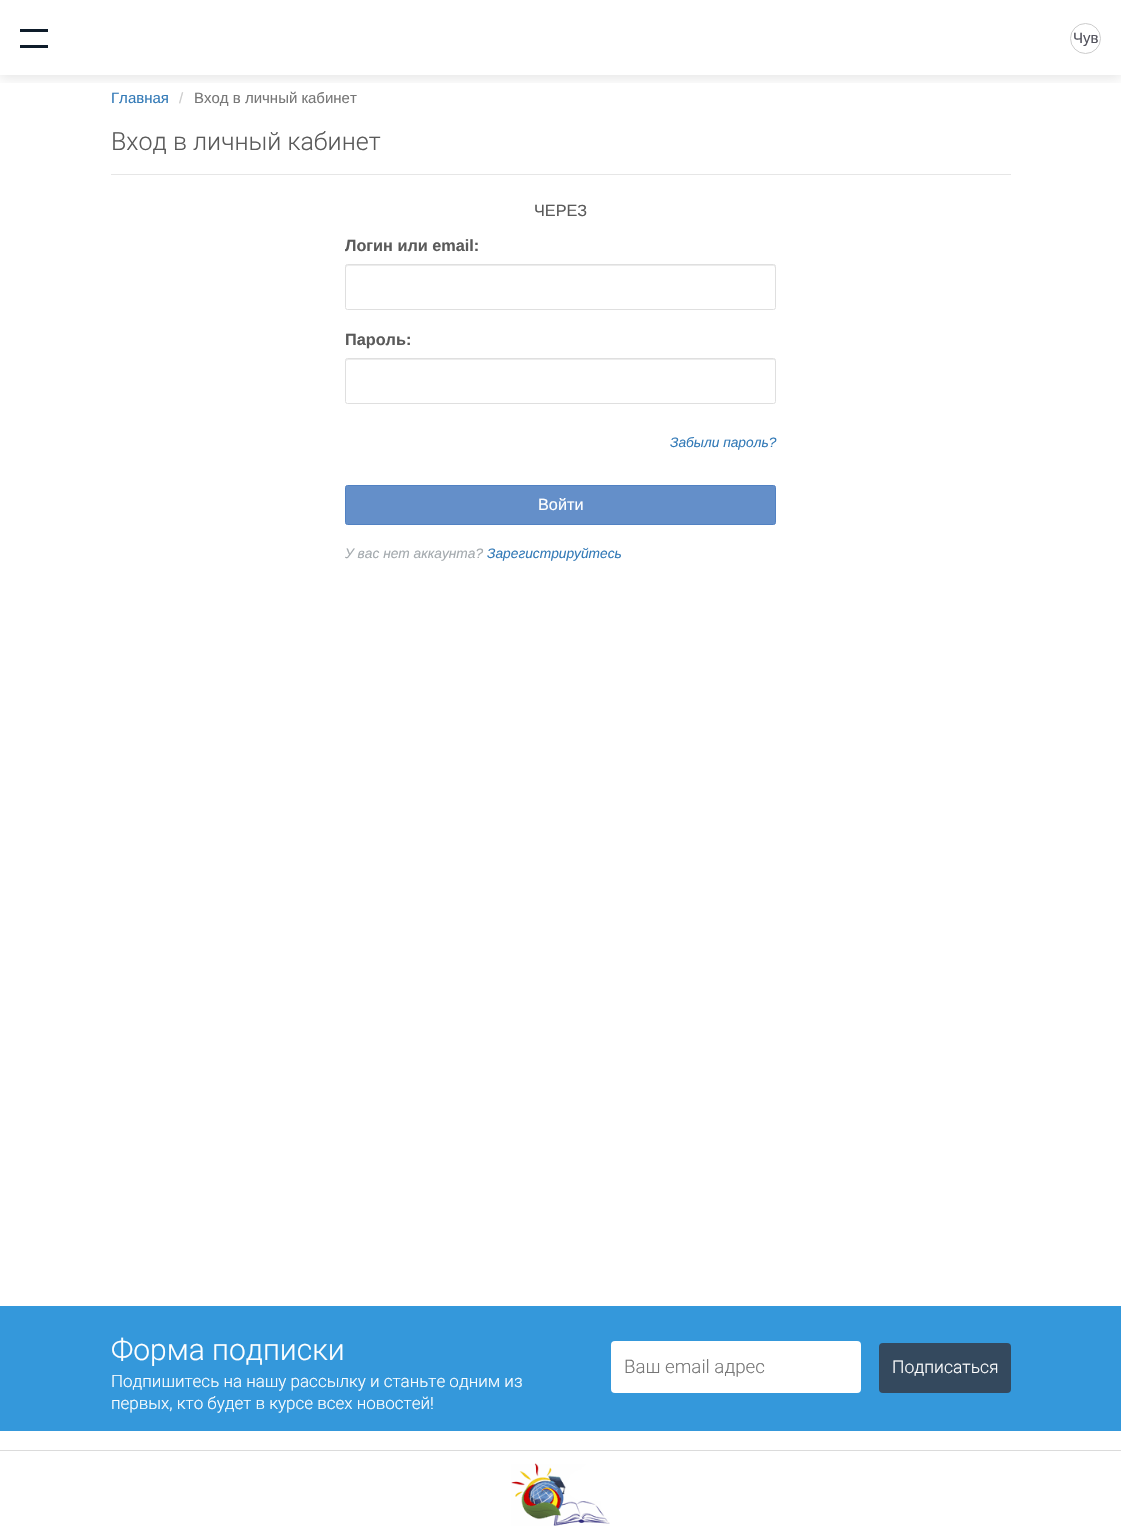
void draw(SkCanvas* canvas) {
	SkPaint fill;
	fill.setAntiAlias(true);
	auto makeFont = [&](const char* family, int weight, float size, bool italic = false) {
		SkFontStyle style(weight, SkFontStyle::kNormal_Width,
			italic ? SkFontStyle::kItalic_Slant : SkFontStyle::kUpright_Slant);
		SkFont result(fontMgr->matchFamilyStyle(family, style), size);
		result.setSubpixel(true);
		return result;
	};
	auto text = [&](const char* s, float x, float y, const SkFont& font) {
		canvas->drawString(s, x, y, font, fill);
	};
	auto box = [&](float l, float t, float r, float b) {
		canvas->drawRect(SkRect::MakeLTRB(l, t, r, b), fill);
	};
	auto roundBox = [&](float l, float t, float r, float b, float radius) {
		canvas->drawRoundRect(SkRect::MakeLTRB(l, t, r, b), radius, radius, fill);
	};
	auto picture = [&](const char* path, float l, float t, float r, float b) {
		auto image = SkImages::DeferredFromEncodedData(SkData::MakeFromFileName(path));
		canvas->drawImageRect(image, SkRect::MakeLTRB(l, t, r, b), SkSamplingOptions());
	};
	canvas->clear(0xFFFFFFFF);
	canvas->save();
	canvas->clipRect(SkRect::MakeLTRB(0, 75, 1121, 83));
	fill.setColor(0x1A000000);
	fill.setMaskFilter(SkMaskFilter::MakeBlur(kNormal_SkBlurStyle, 6));
	canvas->drawRect(SkRect::MakeLTRB(0, 3, 1121, 78), fill);
	fill.setMaskFilter(nullptr);
	canvas->restore();
	fill.setColor(0xFF0E1C2A);
	box(20, 29, 48, 32);
	box(20, 45, 48, 48);
	fill.setStyle(SkPaint::kStroke_Style);
	fill.setStrokeWidth(1);
	fill.setColor(0xFFCCCCCC);
	canvas->drawCircle(1085.5f, 38.5f, 15, fill);
	fill.setStyle(SkPaint::kFill_Style);
	fill.setColor(0xFFE6E6E6);
	box(111, 174, 1011, 175);
	fill.setColor(0xFFECECEC);
	canvas->drawPath(SkPathBuilder().moveTo(348, 266).lineTo(774, 266).lineTo(775, 268).lineTo(775, 266).cubicTo(775, 265, 775, 265, 774, 265).lineTo(347, 265).cubicTo(346, 265, 346, 265, 346, 266).lineTo(346, 268).cubicTo(346, 267, 347, 266, 348, 266).close().detach(), fill);
	fill.setStyle(SkPaint::kStroke_Style);
	fill.setColor(0xFFDFDFDF);
	canvas->drawRoundRect(SkRect::MakeLTRB(345.5f, 264.5f, 775.5f, 309.5f), 2, 2, fill);
	fill.setStyle(SkPaint::kFill_Style);
	fill.setColor(0xFFECECEC);
	canvas->drawPath(SkPathBuilder().moveTo(348, 360).lineTo(774, 360).lineTo(775, 361).lineTo(775, 359).lineTo(774, 359).lineTo(347, 359).lineTo(346, 360).lineTo(346, 361).close().detach(), fill);
	fill.setStyle(SkPaint::kStroke_Style);
	fill.setColor(0xFFDFDFDF);
	canvas->drawRoundRect(SkRect::MakeLTRB(345.5f, 358.5f, 775.5f, 403.5f), 2, 2, fill);
	fill.setStyle(SkPaint::kFill_Style);
	fill.setColor(0xFF648FC9);
	canvas->drawRoundRect(SkRect::MakeLTRB(345.5f, 485.5f, 775.5f, 524.5f), 2, 2, fill);
	fill.setStyle(SkPaint::kStroke_Style);
	fill.setColor(0xFF5181C2);
	canvas->drawRoundRect(SkRect::MakeLTRB(345.5f, 485.5f, 775.5f, 524.5f), 2, 2, fill);
	fill.setStyle(SkPaint::kFill_Style);
	fill.setColor(0xFF3498DB);
	box(0, 1306, 1121, 1431);
	fill.setColor(0xFFFFFFFF);
	roundBox(611, 1341, 861, 1393, 4);
	fill.setColor(0xFF34495E);
	roundBox(879, 1343, 1011, 1393, 4);
	fill.setColor(0xFFDBDBDB);
	box(0, 1450, 1121, 1451);
	picture("image0.png", 511, 1463, 610, 1526);
	auto font1 = makeFont("Liberation Sans", 400, 15);
	fill.setColor(0xFF52525C);
	text("Чув", 1073, 43, font1);
	fill.setColor(0xFF337AB7);
	text("Главная", 111, 103, font1);
	fill.setColor(0xFFCCCCCC);
	text("/", 179, 103, font1);
	fill.setColor(0xFF777777);
	text("Вход в личный кабинет", 194, 103, font1);
	auto font2 = makeFont("Roboto", 300, 25);
	fill.setColor(0xFF5A5A5A);
	text("Вход в личный кабинет", 111, 150, font2);
	auto font3 = makeFont("Liberation Sans", 400, 16.25f);
	text("ЧЕРЕЗ", 534, 216, font3);
	auto font4 = makeFont("Liberation Sans", 700, 16.25f);
	text("Логин или email:", 345, 251, font4);
	text("Пароль:", 345, 345, font4);
	auto font5 = makeFont("Liberation Sans", 400, 13.75f, true);
	fill.setColor(0xFF337AB7);
	text("Забыли пароль?", 670, 447, font5);
	fill.setColor(0xFFFFFFFF);
	text("Войти", 538, 510, font3);
	fill.setColor(0xFFA4AAAE);
	text("У вас нет аккаунта?", 345, 558, font5);
	fill.setColor(0xFF337AB7);
	text("Зарегистрируйтесь", 487, 558, font5);
	auto font6 = makeFont("Roboto", 300, 30);
	fill.setColor(0xFFFFFFFF);
	text("Форма подписки", 111, 1360, font6);
	auto font7 = makeFont("Roboto", 300, 17);
	text("Подпишитесь на нашу рассылку и станьте одним из", 111, 1387, font7);
	text("первых, кто будет в курсе всех новостей!", 111, 1409, font7);
	auto font8 = makeFont("Roboto", 300, 18.75f);
	fill.setColor(0xFF777777);
	text("Ваш email адрес", 624, 1373, font8);
	auto font9 = makeFont("Roboto", 300, 17.5f);
	fill.setColor(0xFFFFFFFF);
	text("Подписаться", 892, 1373, font9);
}
